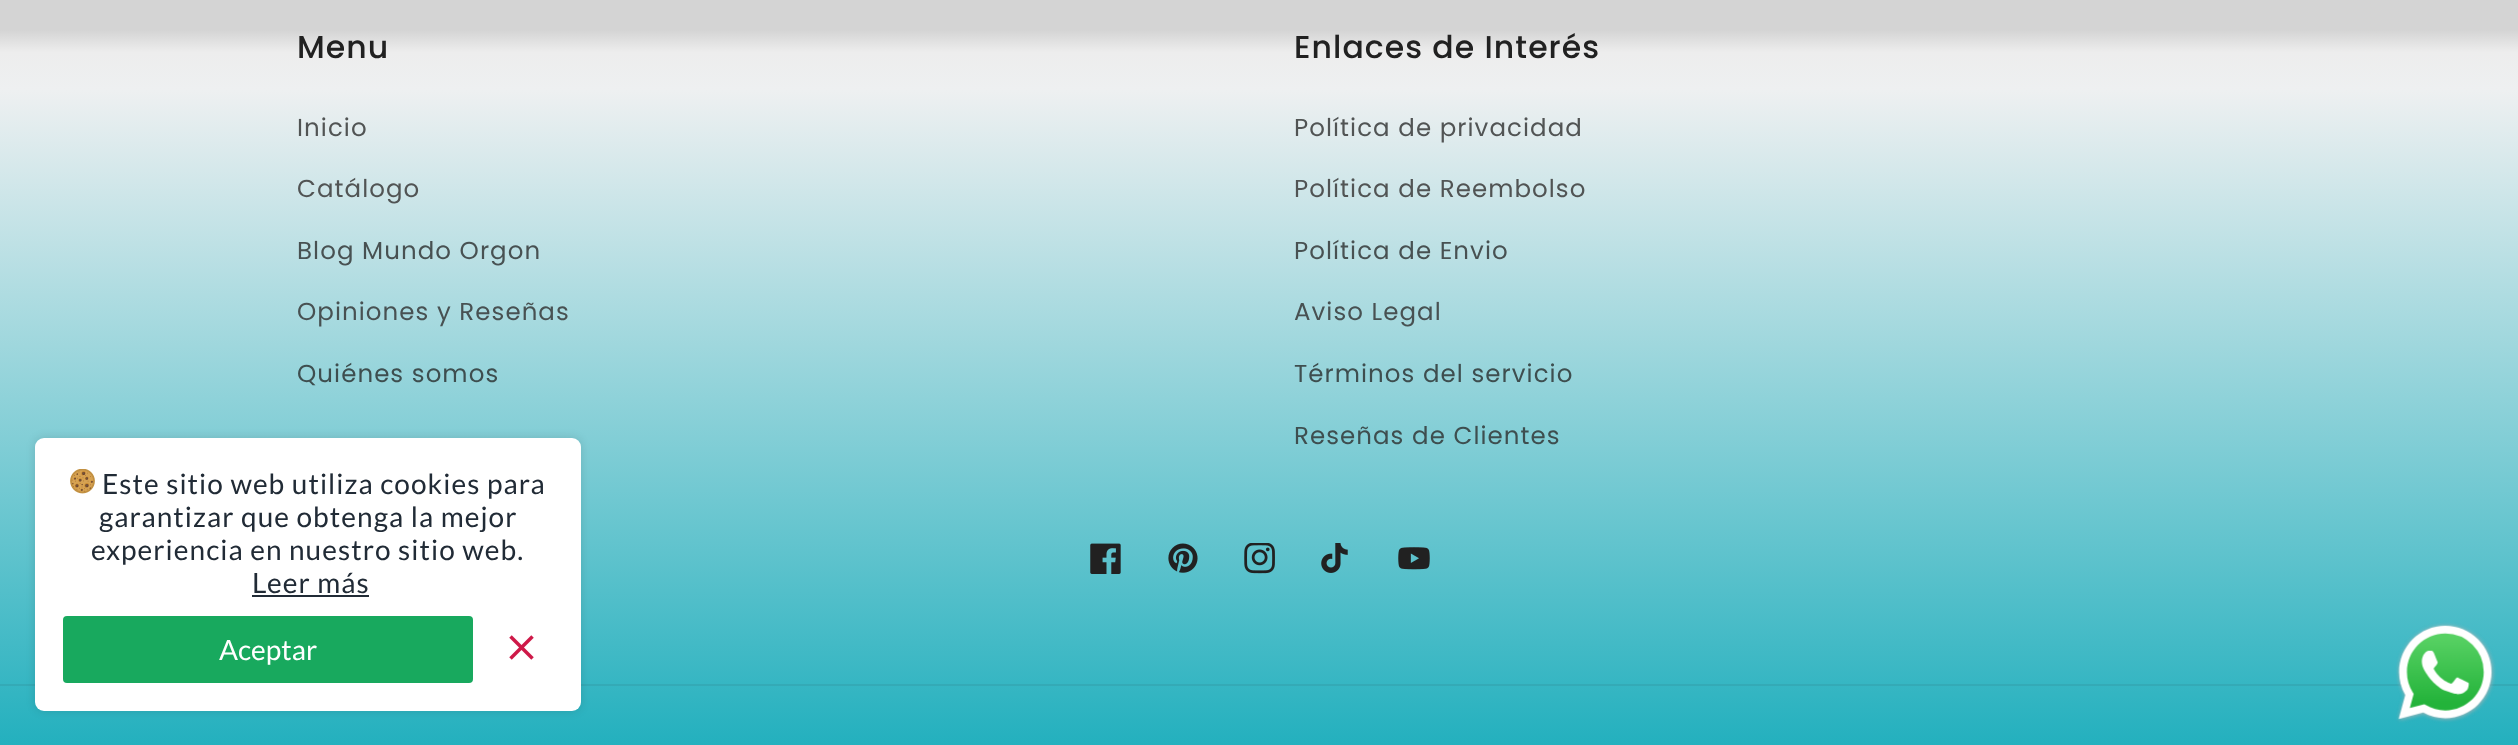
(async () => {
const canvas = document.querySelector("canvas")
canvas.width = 2518
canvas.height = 745
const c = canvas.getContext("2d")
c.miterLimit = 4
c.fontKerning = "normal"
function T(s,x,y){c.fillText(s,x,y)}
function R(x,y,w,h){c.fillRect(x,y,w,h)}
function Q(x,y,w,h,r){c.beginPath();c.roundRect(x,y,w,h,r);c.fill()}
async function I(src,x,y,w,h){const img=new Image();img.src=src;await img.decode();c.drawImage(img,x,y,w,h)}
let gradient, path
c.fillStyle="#fff"
R(0,0,2518,745)
gradient = c.createLinearGradient(1259,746,1259,0)
gradient.addColorStop(0,"#23b0be")
gradient.addColorStop(.88,"#eef0f1")
gradient.addColorStop(.93,"#ededed")
gradient.addColorStop(.96,"#d4d4d4")
c.fillStyle = gradient
R(0,0,2518,745)
c.letterSpacing="1.05px"
c.font="500 31.5px Poppins"
c.fillStyle="#212121"
T("Menu",297,58)
c.font="24.5px Poppins"
c.fillStyle="#515454"
T("Inicio",297,136)
T("Catálogo",297,197)
c.fillStyle="#485152"
T("Blog Mundo Orgon",297,259)
T("Opiniones y Reseñas",297,320)
c.fillStyle="#3e4e4f"
T("Quiénes somos",297,382)
c.font="500 31.5px Poppins"
c.fillStyle="#212121"
T("Enlaces de Interés",1294,58)
c.font="24.5px Poppins"
c.fillStyle="#515454"
T("Política de privacidad",1294,136)
T("Política de Reembolso",1294,197)
c.fillStyle="#485152"
T("Política de Envio",1294,259)
T("Aviso Legal",1294,320)
c.fillStyle="#3e4e4f"
T("Términos del servicio",1294,382)
T("Reseñas de Clientes",1294,444)
await I("1.png",1090,543,31,31)
await I("2.png",1168,543,30,30)
await I("3.png",1244,543,31,31)
await I("4.png",1321,543,27,30)
await I("5.png",1398,547,32,23)
c.fillStyle="#34aab6"
R(0,684,2518,2)
c.fillStyle="#fff"
Q(35,438,546,273,9)
c.save()
path = new Path2D("M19 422h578v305h-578zm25 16h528c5 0 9 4 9 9v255c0 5-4 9-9 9h-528c-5 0-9-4-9-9v-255c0-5 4-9 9-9z")
c.clip(path,"evenodd")
c.fillStyle="#0000001f"
c.filter="blur(5px)"
c.beginPath()
c.roundRect(35,438,546,273,9)
c.fill()
c.filter="none"
c.restore()
await I("6.png",70,469,25,25)
c.font="28px Lato"
c.fillStyle="#212b36"
T("Este sitio web utiliza cookies para",102,494)
T("garantizar que obtenga la mejor",99,527)
T("experiencia en nuestro sitio web.",91,560)
T("Leer más",252,593)
R(252,595,117,2)
c.fillStyle="#18a95e"
Q(63,616,410,67,4)
c.letterSpacing="0px"
c.fillStyle="#fff"
T("Aceptar",219,660)
await I("7.png",509,635,25,25)
await I("8.png",2396,622,100,101)
})()
